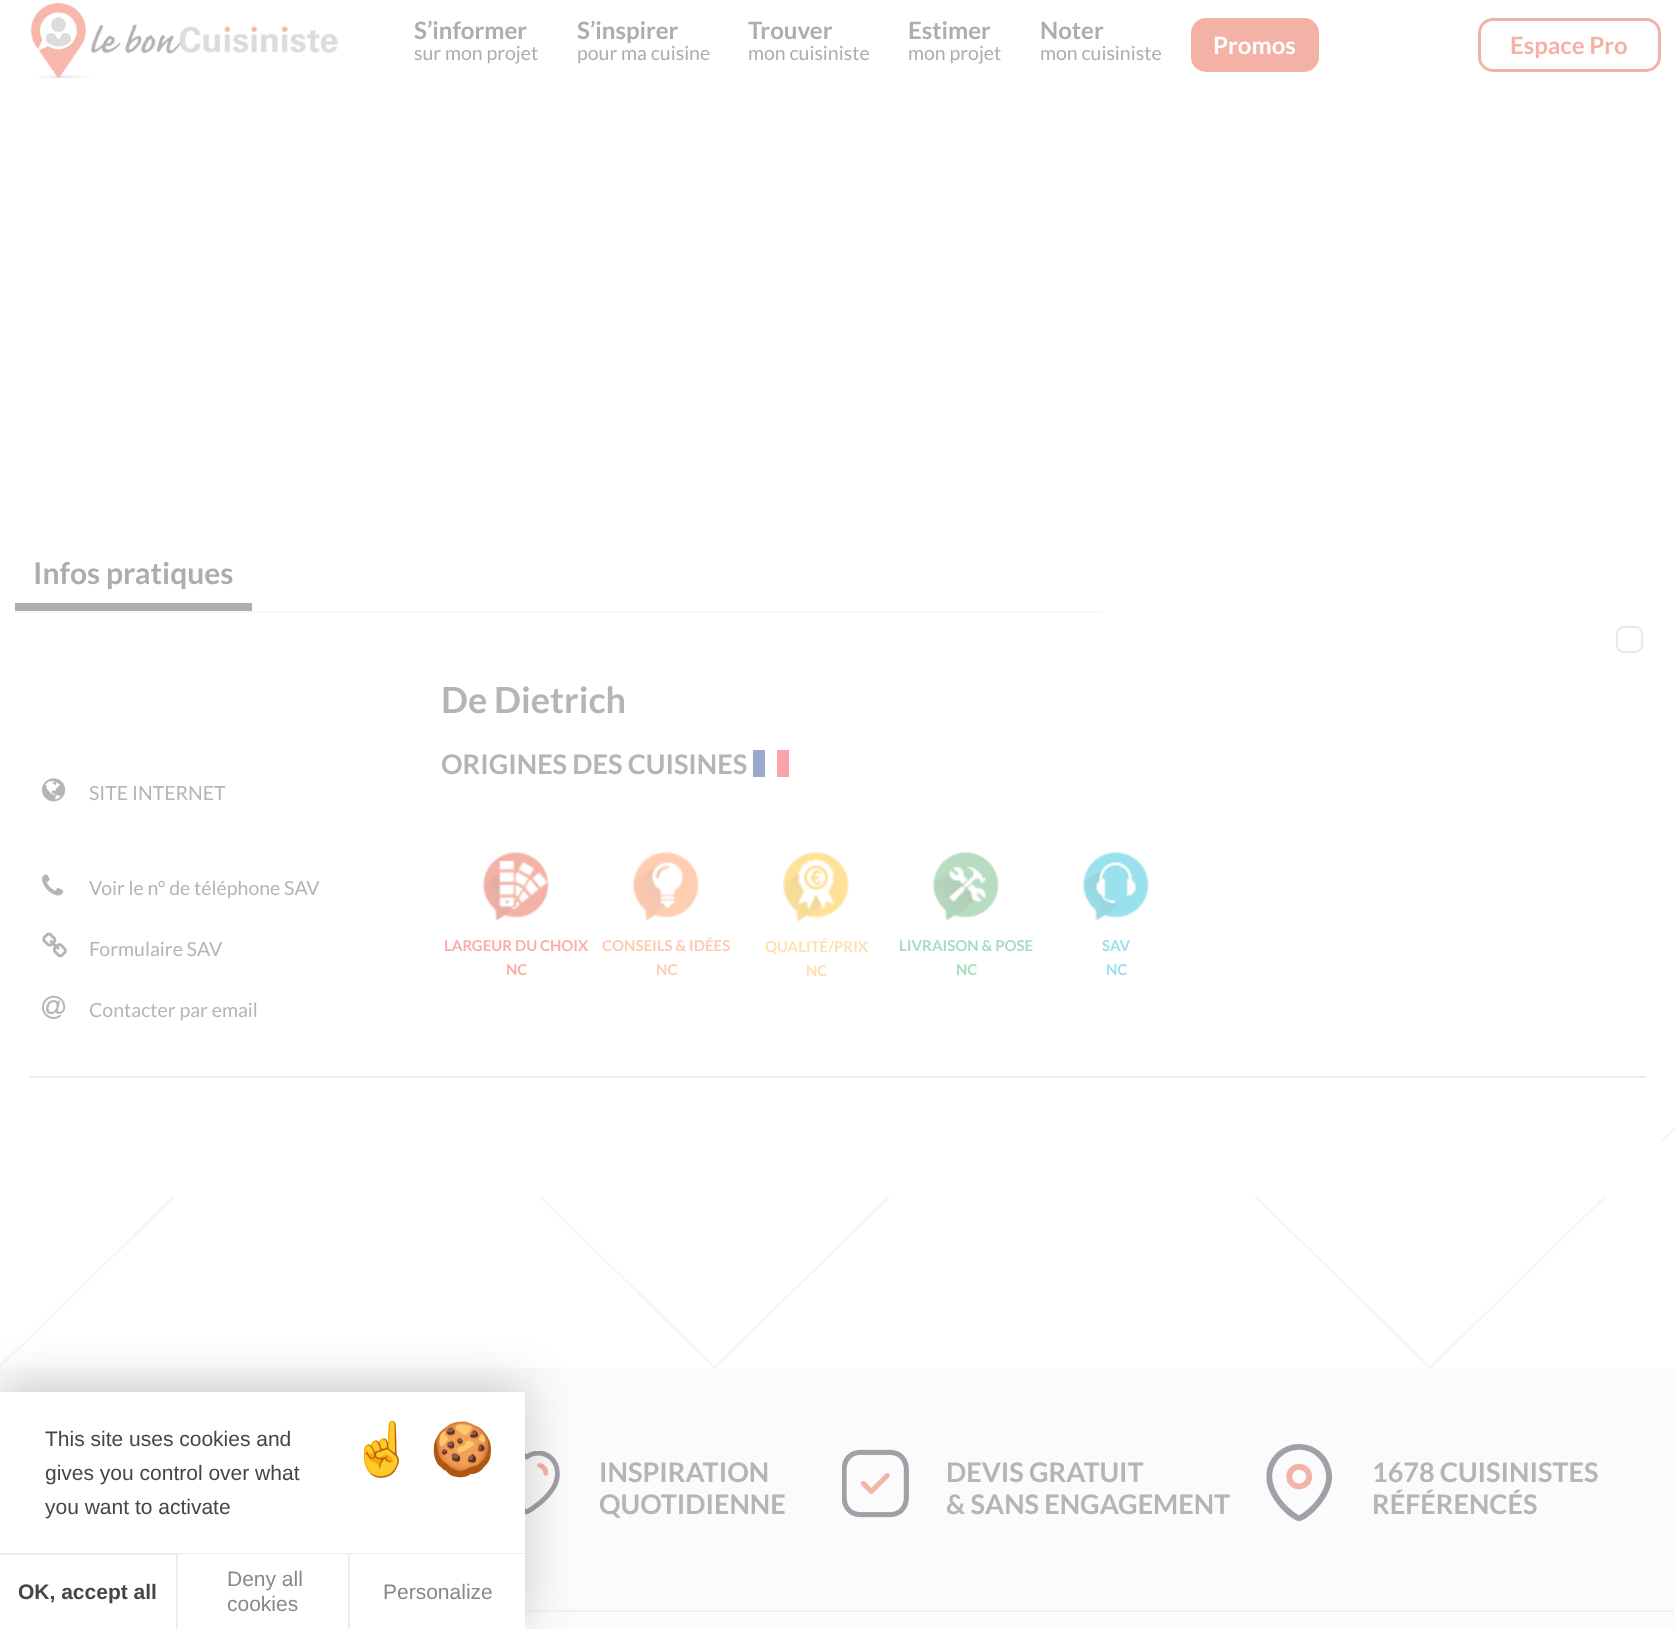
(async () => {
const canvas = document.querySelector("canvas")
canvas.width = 1675
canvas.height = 1629
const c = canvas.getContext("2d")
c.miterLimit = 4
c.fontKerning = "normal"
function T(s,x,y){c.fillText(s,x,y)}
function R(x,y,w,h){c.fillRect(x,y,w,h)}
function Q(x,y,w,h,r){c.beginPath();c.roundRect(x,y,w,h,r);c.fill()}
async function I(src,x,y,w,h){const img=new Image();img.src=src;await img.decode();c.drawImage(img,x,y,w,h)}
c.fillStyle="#fff"
R(0,0,1675,1629)
await I("1.png",30,3,308,75)
c.font="bold 24px Lato"
c.fillStyle="#adadad"
T("S’informer",414,39)
c.font="19.5px Lato"
T("sur mon projet",414,60)
c.font="bold 24px Lato"
T("S’inspirer",577,39)
c.font="19.5px Lato"
T("pour ma cuisine",577,60)
c.font="bold 24px Lato"
T("Trouver",748,39)
c.font="19.5px Lato"
T("mon cuisiniste",748,60)
c.font="bold 24px Lato"
T("Estimer",908,39)
c.font="19.5px Lato"
T("mon projet",908,60)
c.font="bold 24px Lato"
T("Noter",1040,39)
c.font="19.5px Lato"
T("mon cuisiniste",1040,60)
c.fillStyle="#f4b2a7"
Q(1191,18,128,54,15)
c.font="bold 24px Lato"
c.fillStyle="#fff"
T("Promos",1213,54)
c.beginPath()
c.roundRect(1479.5,19.5,180,51,13.5)
c.strokeStyle="#f4b2a7"
c.lineWidth=3
c.stroke()
c.fillStyle="#f4b2a7"
T("Espace Pro",1510,54)
c.fillStyle="#f9f9fb"
R(15,611,1088,2)
c.fillStyle="#adadad"
R(15,603,237,8)
c.font="bold 30px Lato"
T("Infos pratiques",33,584)
await I("11.png",0,1126,1675,242)
c.fillStyle="#fff"
R(172,1126,1489,71)
c.beginPath()
c.roundRect(1617,627,25,25,7)
c.strokeStyle="#e7e9ed"
c.lineWidth=2
c.stroke()
await I("2.png",42,778,24,24)
c.font="19.5px Lato"
c.fillStyle="#b5b5b5"
T("SITE INTERNET",89,800)
await I("3.png",42,874,22,22)
T("Voir le n° de téléphone SAV",89,895)
await I("4.png",42,932,25,26)
T("Formulaire SAV",89,956)
await I("5.png",42,995,24,24)
T("Contacter par email",89,1017)
c.font="bold 36px Lato"
T("De Dietrich",441,713)
c.font="bold 27px Lato"
T("ORIGINES DES CUISINES",441,774)
c.fillStyle="#99a8cc"
R(753,750,12,27)
c.fillStyle="#faa3ac"
R(777,750,12,27)
await I("6.png",483,852,66,69)
c.font="bold 15px Lato"
c.fillStyle="#fbaea9"
T("LARGEUR DU CHOIX",444,951)
T("NC",506,975)
await I("7.png",633,852,66,69)
c.fillStyle="#ffcab3"
T("CONSEILS & IDÉES",602,951)
T("NC",656,975)
await I("8.png",783,852,66,70)
c.fillStyle="#ffe0b1"
T("QUALITÉ/PRIX",765,952)
T("NC",806,976)
await I("9.png",933,852,66,69)
c.fillStyle="#a7dcc1"
T("LIVRAISON & POSE",899,951)
T("NC",956,975)
await I("10.png",1083,852,66,69)
c.fillStyle="#99e1eb"
T("SAV",1102,951)
T("NC",1106,975)
c.fillStyle="#ececec"
R(30,1076,1616,2)
c.fillStyle="#fbfbfb"
R(0,1368,1675,242)
await I("12.png",525,1451,35,64)
c.font="bold 27px Lato"
c.fillStyle="#b5b5b5"
T("INSPIRATION",599,1482)
T("QUOTIDIENNE",599,1514)
await I("13.png",842,1449,67,69)
T("DEVIS GRATUIT",946,1482)
c.save()
c.beginPath()
c.rect(932,1457,298,64)
c.clip()
T("& SANS ENGAGEMENT",946,1514)
c.restore()
await I("14.png",1266,1444,66,78)
T("1678 CUISINISTES",1372,1482)
T("RÉFÉRENCÉS",1372,1514)
c.fillStyle="#fbfbfb"
R(525,1612,1150,17)
c.fillStyle="#f1f1f1"
R(525,1610,1150,2)
c.fillStyle="#00000033"
c.filter="blur(24px)"
c.beginPath()
c.rect(0,1385,525,237)
c.fill()
c.filter="none"
c.fillStyle="#fff"
R(0,1392,525,237)
c.font="21px Liberation Sans"
c.fillStyle="#454545"
T("This site uses cookies and",45,1446)
T("gives you control over what",45,1480)
T("you want to activate",45,1514)
c.font="52px Noto Color Emoji"
T("☝",350,1467)
T("🍪",430,1467)
c.fillStyle="#eee"
R(0,1553,525,2)
c.font="bold 21px Liberation Sans"
c.fillStyle="#454545"
T("OK, accept all",18,1599)
c.fillStyle="#fff"
R(178,1554,170,1)
c.fillStyle="#eee"
R(348,1554,2,75)
R(176,1554,2,75)
c.font="21px Liberation Sans"
c.fillStyle="#888"
T("Deny all",227,1586)
T("cookies",227,1611)
c.strokeStyle="#fff"
c.strokeRect(351,1555,173,73)
T("Personalize",383,1599)
})()
